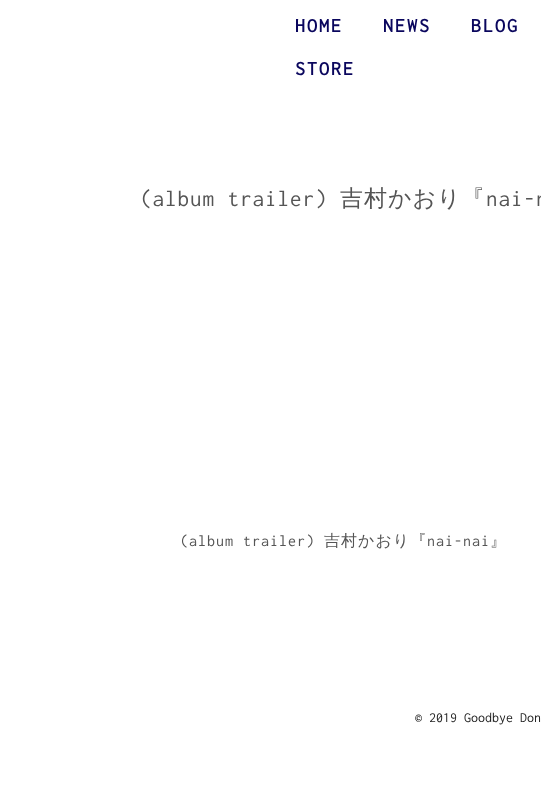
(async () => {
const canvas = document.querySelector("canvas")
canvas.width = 541
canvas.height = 807
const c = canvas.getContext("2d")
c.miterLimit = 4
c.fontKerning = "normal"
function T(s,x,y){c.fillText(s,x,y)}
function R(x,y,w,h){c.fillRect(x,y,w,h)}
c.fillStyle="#fff"
R(0,0,541,807)
c.letterSpacing="2px"
c.font="bold 20px Inconsolata"
c.fillStyle="#0a065d"
T("HOME",295,32)
T("NEWS",383,32)
T("BLOG",471,32)
T("STORE",295,75)
c.letterSpacing="1px"
c.font="23px Inconsolata"
c.fillStyle="#555"
T("(album trailer)",140,206)
c.font="500 23px WenQuanYi Zen Hei"
T("吉村かおり『",340,206)
c.font="23px Inconsolata"
T("nai-n",486,206)
c.font="16px Inconsolata"
T("(album trailer)",180,546)
c.font="500 16px WenQuanYi Zen Hei"
T("吉村かおり『",324,546)
c.font="16px Inconsolata"
T("nai-nai",427,546)
c.font="500 16px WenQuanYi Zen Hei"
T("』",490,546)
c.letterSpacing="0px"
c.font="14px Inconsolata"
c.fillStyle="#222"
T("© 2019 Goodbye Don",415,722)
})()
